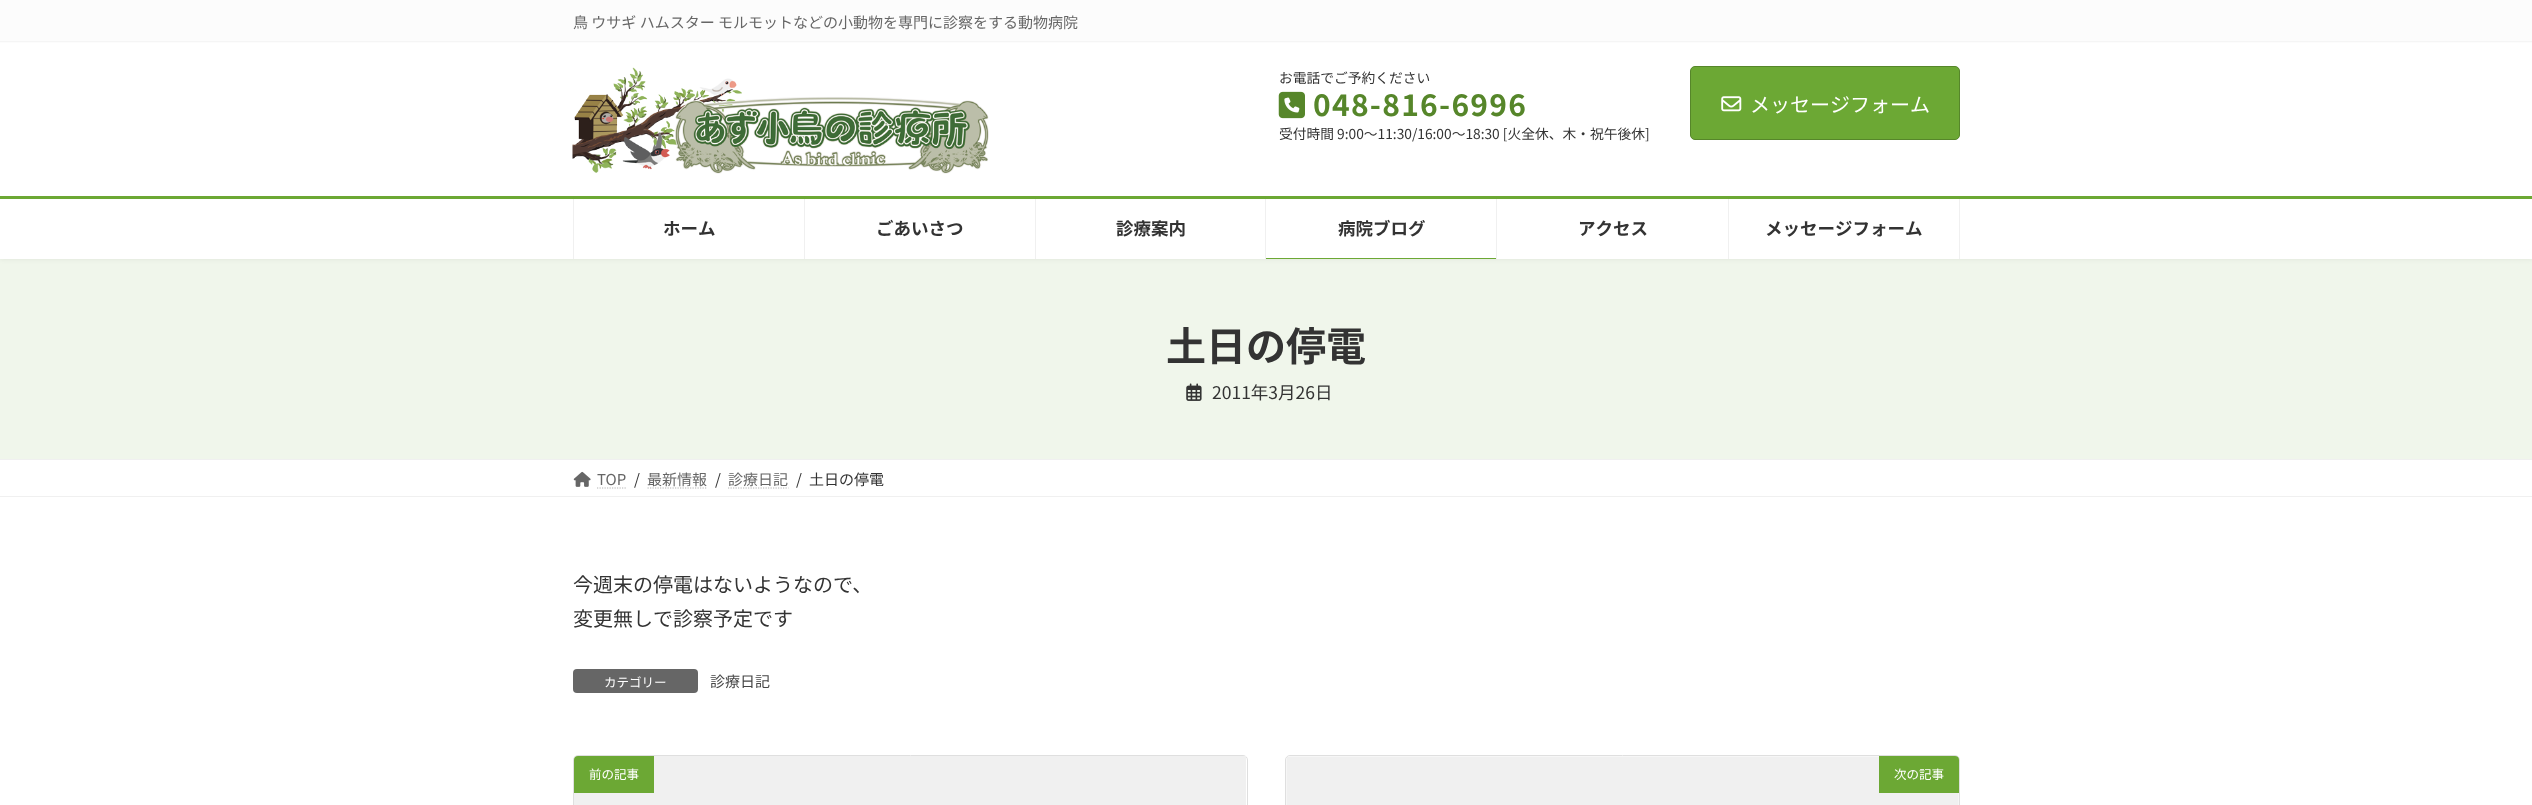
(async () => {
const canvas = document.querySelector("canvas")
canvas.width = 2532
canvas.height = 805
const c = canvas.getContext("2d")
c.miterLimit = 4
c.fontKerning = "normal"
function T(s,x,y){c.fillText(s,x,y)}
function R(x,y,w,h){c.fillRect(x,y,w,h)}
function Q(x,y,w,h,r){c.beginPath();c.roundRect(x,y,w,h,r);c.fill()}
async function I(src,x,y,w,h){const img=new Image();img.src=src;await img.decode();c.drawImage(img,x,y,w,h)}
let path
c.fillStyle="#fff"
R(0,0,2532,805)
c.fillStyle="#f0f6eb"
R(0,259,2532,200)
c.fillStyle="#0000000d"
c.filter="blur(2px)"
c.beginPath()
c.rect(0,-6,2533,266)
c.fill()
c.filter="none"
c.fillStyle="#fff"
R(0,43,2532,216)
c.fillStyle="#fcfcfc"
R(0,0,2532,43)
c.fillStyle="#f5f5f5"
R(0,41,2532,1)
c.font="15px Noto Sans JP"
c.fillStyle="#666"
T("鳥 ウサギ ハムスター モルモットなどの小動物を専門に診察をする動物病院",573,28)
await I("1.png",572,67,417,107)
c.font="13.75px Noto Sans JP"
c.fillStyle="#333"
T("お電話でご予約ください",1279,83)
await I("2.png",1278,91,27,28)
c.letterSpacing="1.25px"
c.font="bold 30px Noto Sans JP"
c.fillStyle="#56862a"
T("048-816-6996",1313,116)
c.letterSpacing="0px"
c.font="13.75px Noto Sans JP"
c.fillStyle="#333"
T("受付時間 9:00～11:30/16:00～18:30 [火全休、木・祝午後休]",1279,139)
c.fillStyle="#6ca834"
c.beginPath()
c.roundRect(1690.5,66.5,269,73,4.5)
c.fill()
c.strokeStyle="#56862a"
c.stroke()
await I("3.png",1721,96,21,16)
c.font="20px Noto Sans JP"
c.fillStyle="#fff"
T("メッセージフォーム",1750,112)
c.fillStyle="#6ca834"
R(0,196,2532,3)
c.fillStyle="#f0f0f0"
R(804,199,1,60)
R(573,199,1,60)
c.font="bold 17.5px Noto Sans JP"
c.fillStyle="#333"
T("ホーム",663,235)
c.fillStyle="#f0f0f0"
R(1035,199,1,60)
c.fillStyle="#333"
T("ごあいさつ",876,235)
c.fillStyle="#f0f0f0"
R(1265,199,1,60)
c.fillStyle="#333"
T("診療案内",1116,235)
c.fillStyle="#f0f0f0"
R(1496,199,1,60)
c.fillStyle="#333"
T("病院ブログ",1338,235)
c.fillStyle="#6ca834"
R(1266,258,230,1)
c.fillStyle="#f0f0f0"
R(1728,199,1,60)
c.fillStyle="#333"
T("アクセス",1578,235)
c.fillStyle="#f0f0f0"
R(1959,199,1,60)
c.fillStyle="#333"
T("メッセージフォーム",1765,235)
c.font="bold 40px Noto Sans JP"
T("土日の停電",1166,361)
await I("4.png",1186,383,16,18)
c.font="17.5px Noto Sans JP"
T("2011年3月26日",1212,399)
c.fillStyle="#f0f0f0"
R(0,459,2532,1)
R(0,496,2532,1)
await I("5.png",573,471,18,16)
c.font="15px Noto Sans JP"
c.fillStyle="#666"
T("TOP",597,485)
path = new Path2D("M597 488h29.5")
c.strokeStyle="#b3b3b3"
c.lineWidth=1.2
c.setLineDash([1.25,1.25])
c.stroke(path)
c.fillStyle="#333"
T("/",634,485)
c.fillStyle="#666"
T("最新情報",647,485)
path = new Path2D("M647.5 488h60")
c.stroke(path)
c.fillStyle="#333"
T("/",715,485)
c.fillStyle="#666"
T("診療日記",728,485)
path = new Path2D("M728 488h60.5")
c.stroke(path)
c.fillStyle="#333"
T("/",796,485)
T("土日の停電",809,485)
c.font="20px Noto Sans JP"
T("今週末の停電はないようなので、",573,592)
T("変更無しで診察予定です",573,626)
c.fillStyle="#666"
Q(573,669,125,24,4)
c.font="12.5px Noto Sans JP"
c.fillStyle="#fff"
T("カテゴリー",604,687)
c.font="15px Noto Sans JP"
c.fillStyle="#464646"
T("診療日記",710,687)
c.beginPath()
c.roundRect(573.5,755.5,674,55,4.5)
c.strokeStyle="#dfdfdf"
c.lineWidth=1
c.setLineDash([])
c.stroke()
c.fillStyle="#f0f0f0"
R(574,756,672,49)
c.fillStyle="#6ca834"
c.beginPath()
c.roundRect(574,756,80,37,[4,0,0,0])
c.fill()
c.font="12.5px Noto Sans JP"
c.fillStyle="#fff"
T("前の記事",589,779)
c.beginPath()
c.roundRect(1285.5,755.5,674,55,4.5)
c.stroke()
await I("6.png",1286,756,673,49)
c.fillStyle="#6ca834"
c.beginPath()
c.roundRect(1879,756,80,37,[0,4,0,0])
c.fill()
c.fillStyle="#fff"
T("次の記事",1894,779)
})()
